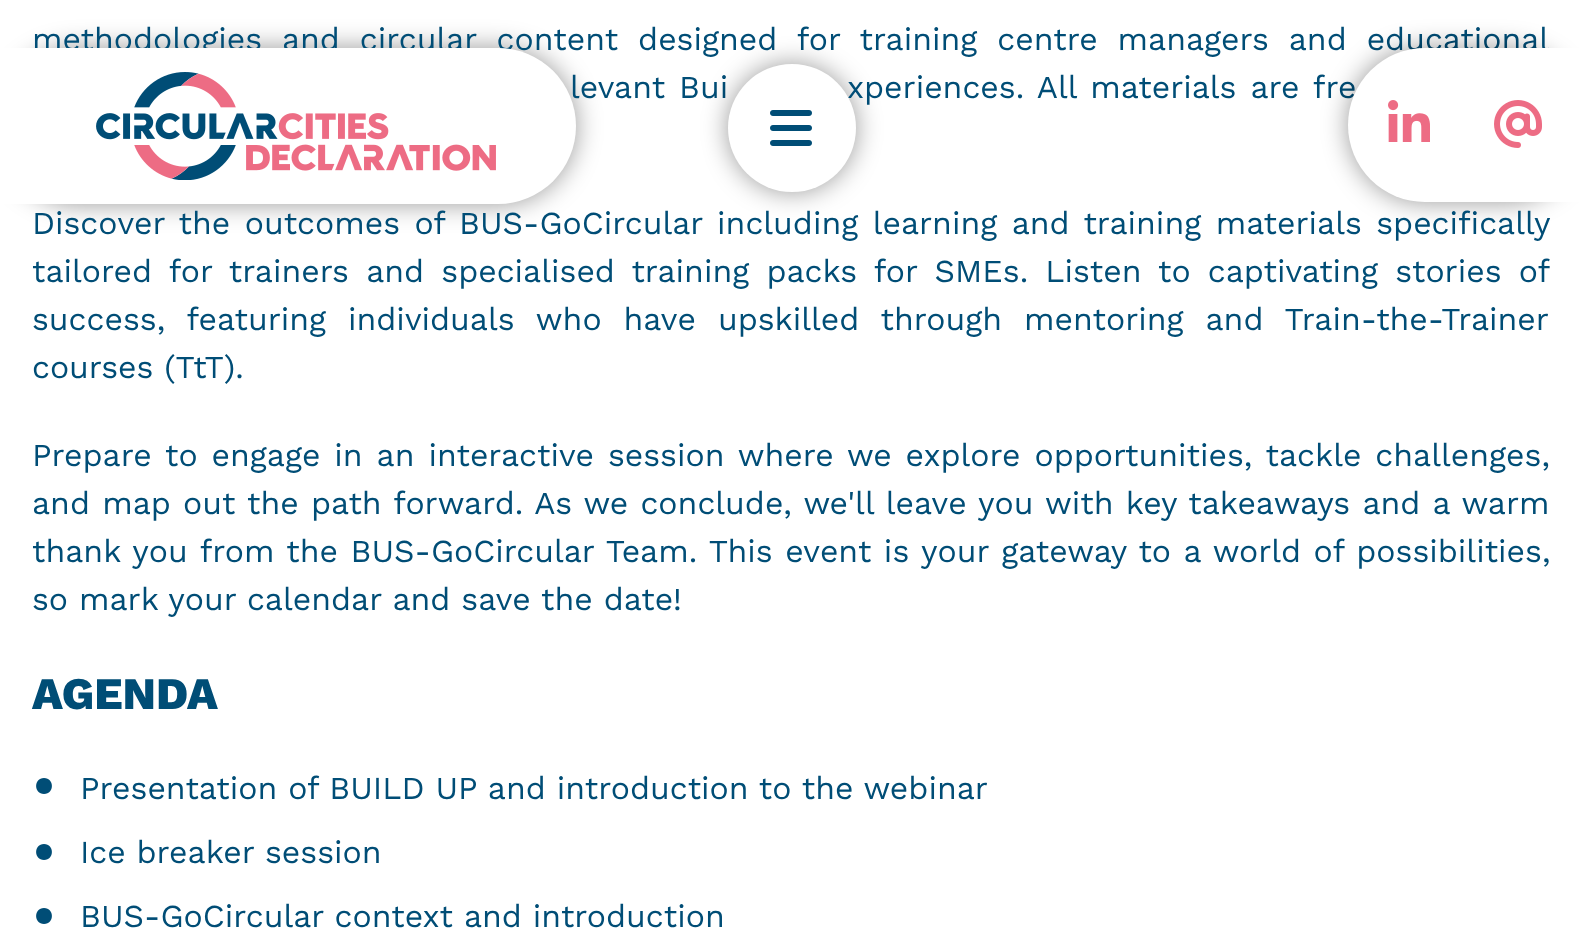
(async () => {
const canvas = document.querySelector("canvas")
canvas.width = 1582
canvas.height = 936
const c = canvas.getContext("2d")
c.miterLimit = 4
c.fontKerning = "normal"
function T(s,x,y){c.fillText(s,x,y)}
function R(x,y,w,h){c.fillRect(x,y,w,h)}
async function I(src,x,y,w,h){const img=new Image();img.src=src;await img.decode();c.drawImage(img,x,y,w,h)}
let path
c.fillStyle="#fff"
R(0,0,1582,936)
c.fillStyle="#00000066"
c.filter="blur(13px)"
c.beginPath()
c.roundRect(0,48,576,156,78)
c.fill()
c.filter="none"
c.wordSpacing="9px"
c.font="32px Work Sans"
c.fillStyle="#004d76"
T("methodologies and circular content designed for training centre managers and educational",32,50)
c.wordSpacing="3px"
T("levant Bui",570,98)
c.fillStyle="#fff"
c.beginPath()
c.roundRect(0,48,576,156,[0,78,78,0])
c.fill()
await I("1.png",96,72,400,108)
c.fillStyle="#00000066"
c.filter="blur(13px)"
c.beginPath()
c.roundRect(728,64,128,128,64)
c.fill()
c.filter="none"
c.fillStyle="#004d76"
T("xperiences. All materials are fre",847,98)
c.fillStyle="#fff"
c.beginPath()
c.arc(792,128,64,0,7)
c.fill()
await I("2.png",770,110,42,36)
c.fillStyle="#00000066"
c.filter="blur(13px)"
c.beginPath()
c.roundRect(1348,48,234,154,77)
c.fill()
c.filter="none"
c.fillStyle="#fff"
c.beginPath()
c.roundRect(1348,48,234,154,[77,0,0,77])
c.fill()
await I("3.png",1388,100,42,42)
await I("4.png",1494,100,48,48)
c.wordSpacing="3.5px"
c.fillStyle="#004d76"
T("Discover the outcomes of BUS-GoCircular including learning and training materials specifically",32,234)
c.wordSpacing="6.25px"
T("tailored for trainers and specialised training packs for SMEs. Listen to captivating stories of",32,282)
c.wordSpacing="11px"
T("success, featuring individuals who have upskilled through mentoring and Train-the-Trainer",32,330)
c.wordSpacing="0px"
T("courses (TtT).",32,378)
c.wordSpacing="3px"
T("Prepare to engage in an interactive session where we explore opportunities, tackle challenges,",32,466)
c.wordSpacing="1.3px"
T("and map out the path forward. As we conclude, we'll leave you with key takeaways and a warm",32,514)
c.wordSpacing="1.6px"
T("thank you from the BUS-GoCircular Team. This event is your gateway to a world of possibilities,",32,562)
c.wordSpacing="0px"
T("so mark your calendar and save the date!",32,610)
c.font="800 45px Work Sans"
T("AGENDA",32,709)
path = new Path2D("M44 794c10.5 0 10.5-16 0-16c-10.5 0-10.5 16 0 16z")
c.fill(path)
c.font="32px Work Sans"
T("Presentation of BUILD UP and introduction to the webinar",80,799)
path = new Path2D("M44 860c10.5 0 10.5-16 0-16c-10.5 0-10.5 16 0 16z")
c.fill(path)
T("Ice breaker session",80,863)
path = new Path2D("M44 924c10.5 0 10.5-16 0-16c-10.5 0-10.5 16 0 16z")
c.fill(path)
T("BUS-GoCircular context and introduction",80,927)
})()
